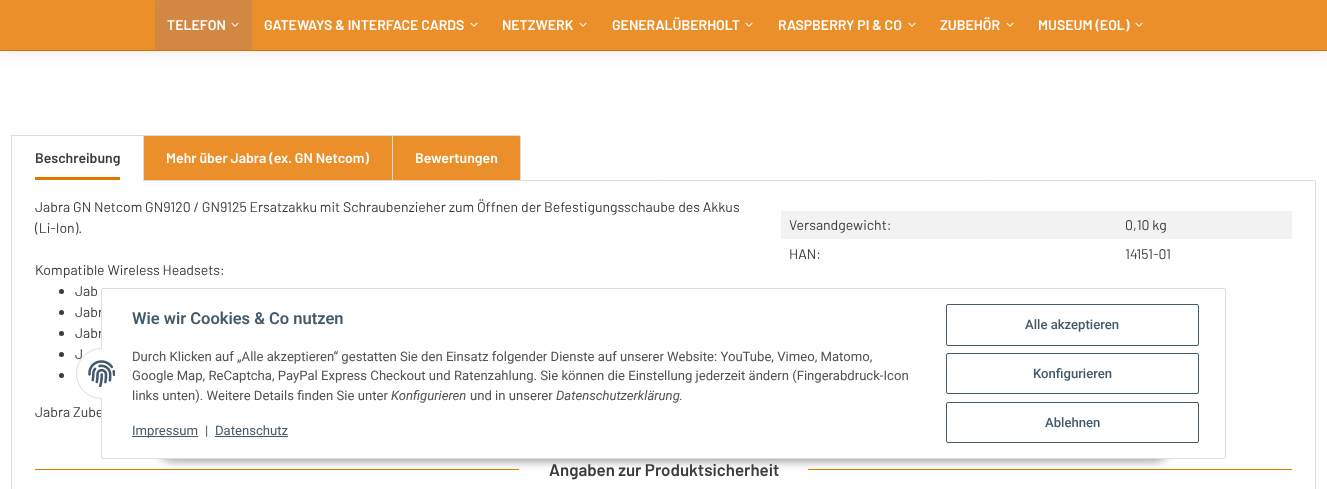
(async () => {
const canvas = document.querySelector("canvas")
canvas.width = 1327
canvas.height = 489
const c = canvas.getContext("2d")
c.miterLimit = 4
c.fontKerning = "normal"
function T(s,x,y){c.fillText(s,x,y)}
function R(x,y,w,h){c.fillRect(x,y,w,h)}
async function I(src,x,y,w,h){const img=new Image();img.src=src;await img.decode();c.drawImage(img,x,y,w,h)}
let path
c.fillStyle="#fff"
R(0,0,1327,489)
c.fillStyle="#3b3c3b14"
c.filter="blur(7.5px)"
c.beginPath()
c.rect(-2,0,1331,55)
c.fill()
c.filter="none"
c.fillStyle="#d97100"
R(0,50,1327,1)
c.fillStyle="#eb8f2b"
R(0,0,1327,50)
c.fillStyle="#d28743"
c.beginPath()
c.roundRect(155,0,97,50,[2,0,0,0])
c.fill()
c.font="600 14.05px Barlow"
c.fillStyle="#fff"
T("TELEFON",167,30)
await I("1.png",231,22,8,5)
T("GATEWAYS & INTERFACE CARDS",264,30)
await I("2.png",470,22,8,5)
T("NETZWERK",502,30)
await I("2.png",579,22,8,5)
T("GENERALÜBERHOLT",612,30)
await I("2.png",745,22,8,5)
T("RASPBERRY PI & CO",778,30)
await I("2.png",908,22,8,5)
T("ZUBEHÖR",940,30)
await I("2.png",1006,22,8,5)
T("MUSEUM (EOL)",1038,30)
await I("2.png",1135,22,8,5)
c.fillStyle="#ddd"
R(11,135,133,1)
path = new Path2D("M11.5 180.5h1302.5c1 0 1.5 .5 1.5 1.5v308c0 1-.5 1.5-1.5 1.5h-1301c-1 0-1.5-.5-1.5-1.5z")
c.strokeStyle="#ddd"
c.stroke(path)
c.fillStyle="#fff"
R(11,180,133,1)
c.fillStyle="#ddd"
R(11,135,1,46)
c.fillStyle="#3b3c3b"
T("Beschreibung",35,163)
c.fillStyle="#e37600"
R(35,177,85,3)
c.fillStyle="#eb8f2b"
c.beginPath()
c.rect(143.5,135.5,249,45)
c.fill()
c.stroke()
c.fillStyle="#fff"
T("Mehr über Jabra (ex. GN Netcom)",166,163)
c.fillStyle="#eb8f2b"
c.beginPath()
c.roundRect(392.5,135.5,128,45,[0,1.5,0,0])
c.fill()
c.stroke()
c.fillStyle="#fff"
T("Bewertungen",415,163)
c.font="14.05px Barlow"
c.fillStyle="#3b3c3b"
T("Jabra GN Netcom GN9120 / GN9125 Ersatzakku mit Schraubenzieher zum Öffnen der Befestigungsschaube des Akkus",35,212)
T("(Li-Ion).",35,233)
T("Kompatible Wireless Headsets:",35,275)
c.beginPath()
c.arc(61.5,291.5,2.5,0,7)
c.fill()
T("Jab",75,296)
c.beginPath()
c.arc(61.5,312.5,2.5,0,7)
c.fill()
T("Jabr",75,317)
c.beginPath()
c.arc(61.5,333.5,2.5,0,7)
c.fill()
T("Jabr",75,338)
c.beginPath()
c.arc(61.5,354.5,2.5,0,7)
c.fill()
T("J",75,359)
c.beginPath()
c.arc(61.5,375.5,2.5,0,7)
c.fill()
T("Jabra Zube",35,417)
c.fillStyle="#f2f2f2"
R(781,211,511,28)
c.fillStyle="#3b3c3b"
T("Versandgewicht:",789,230)
T("0,10 kg",1125,230)
T("HAN:",789,259)
T("14151-01",1125,259)
c.fillStyle="#e37600"
R(35,469,484,1)
c.font="600 16.9px Barlow"
c.fillStyle="#3b3c3b"
T("Angaben zur Produktsicherheit",549,476)
c.fillStyle="#e37600"
R(808,469,484,1)
c.fillStyle="#3b3c3b73"
c.filter="blur(4.5px)"
c.beginPath()
c.roundRect(158,432,1011,30,15)
c.fill()
c.filter="none"
c.fillStyle="#fff"
c.beginPath()
c.roundRect(101.5,288.5,1124,170,1.5)
c.fill()
c.stroke()
c.beginPath()
c.roundRect(76.5,348.5,51,50,25)
c.fill()
c.stroke()
R(102,348,26,51)
await I("3.png",88,360,27,27)
c.font="600 16.5px Roboto"
c.fillStyle="#435a6b"
T("Wie wir Cookies & Co nutzen",132,324)
c.font="13.12px Roboto"
c.fillStyle="#525252"
T("Durch Klicken auf „Alle akzeptieren“ gestatten Sie den Einsatz folgender Dienste auf unserer Website: YouTube, Vimeo, Matomo,",132,361)
T("Google Map, ReCaptcha, PayPal Express Checkout und Ratenzahlung. Sie können die Einstellung jederzeit ändern (Fingerabdruck-Icon",132,380)
T("links unten). Weitere Details finden Sie unter",132,400)
c.font="italic 13.12px Roboto"
T("Konfigurieren",391,400)
c.font="13.12px Roboto"
T("und in unserer",470,400)
c.font="italic 13.12px Roboto"
T("Datenschutzerklärung",556,400)
c.font="13.12px Roboto"
T(".",679,400)
c.fillStyle="#435a6b"
R(132,436,66,1)
T("Impressum",132,435)
c.fillStyle="#525252"
T("|",205,435)
c.fillStyle="#435a6b"
T("Datenschutz",215,435)
R(215,436,73,1)
c.beginPath()
c.roundRect(946.5,304.5,252,41,1.5)
c.strokeStyle="#435a6b"
c.stroke()
c.font="500 13.12px Roboto"
T("Alle akzeptieren",1025,329)
c.beginPath()
c.roundRect(946.5,353.5,252,40,1.5)
c.stroke()
T("Konfigurieren",1033,378)
c.beginPath()
c.roundRect(946.5,402.5,252,40,1.5)
c.stroke()
T("Ablehnen",1045,427)
})()
